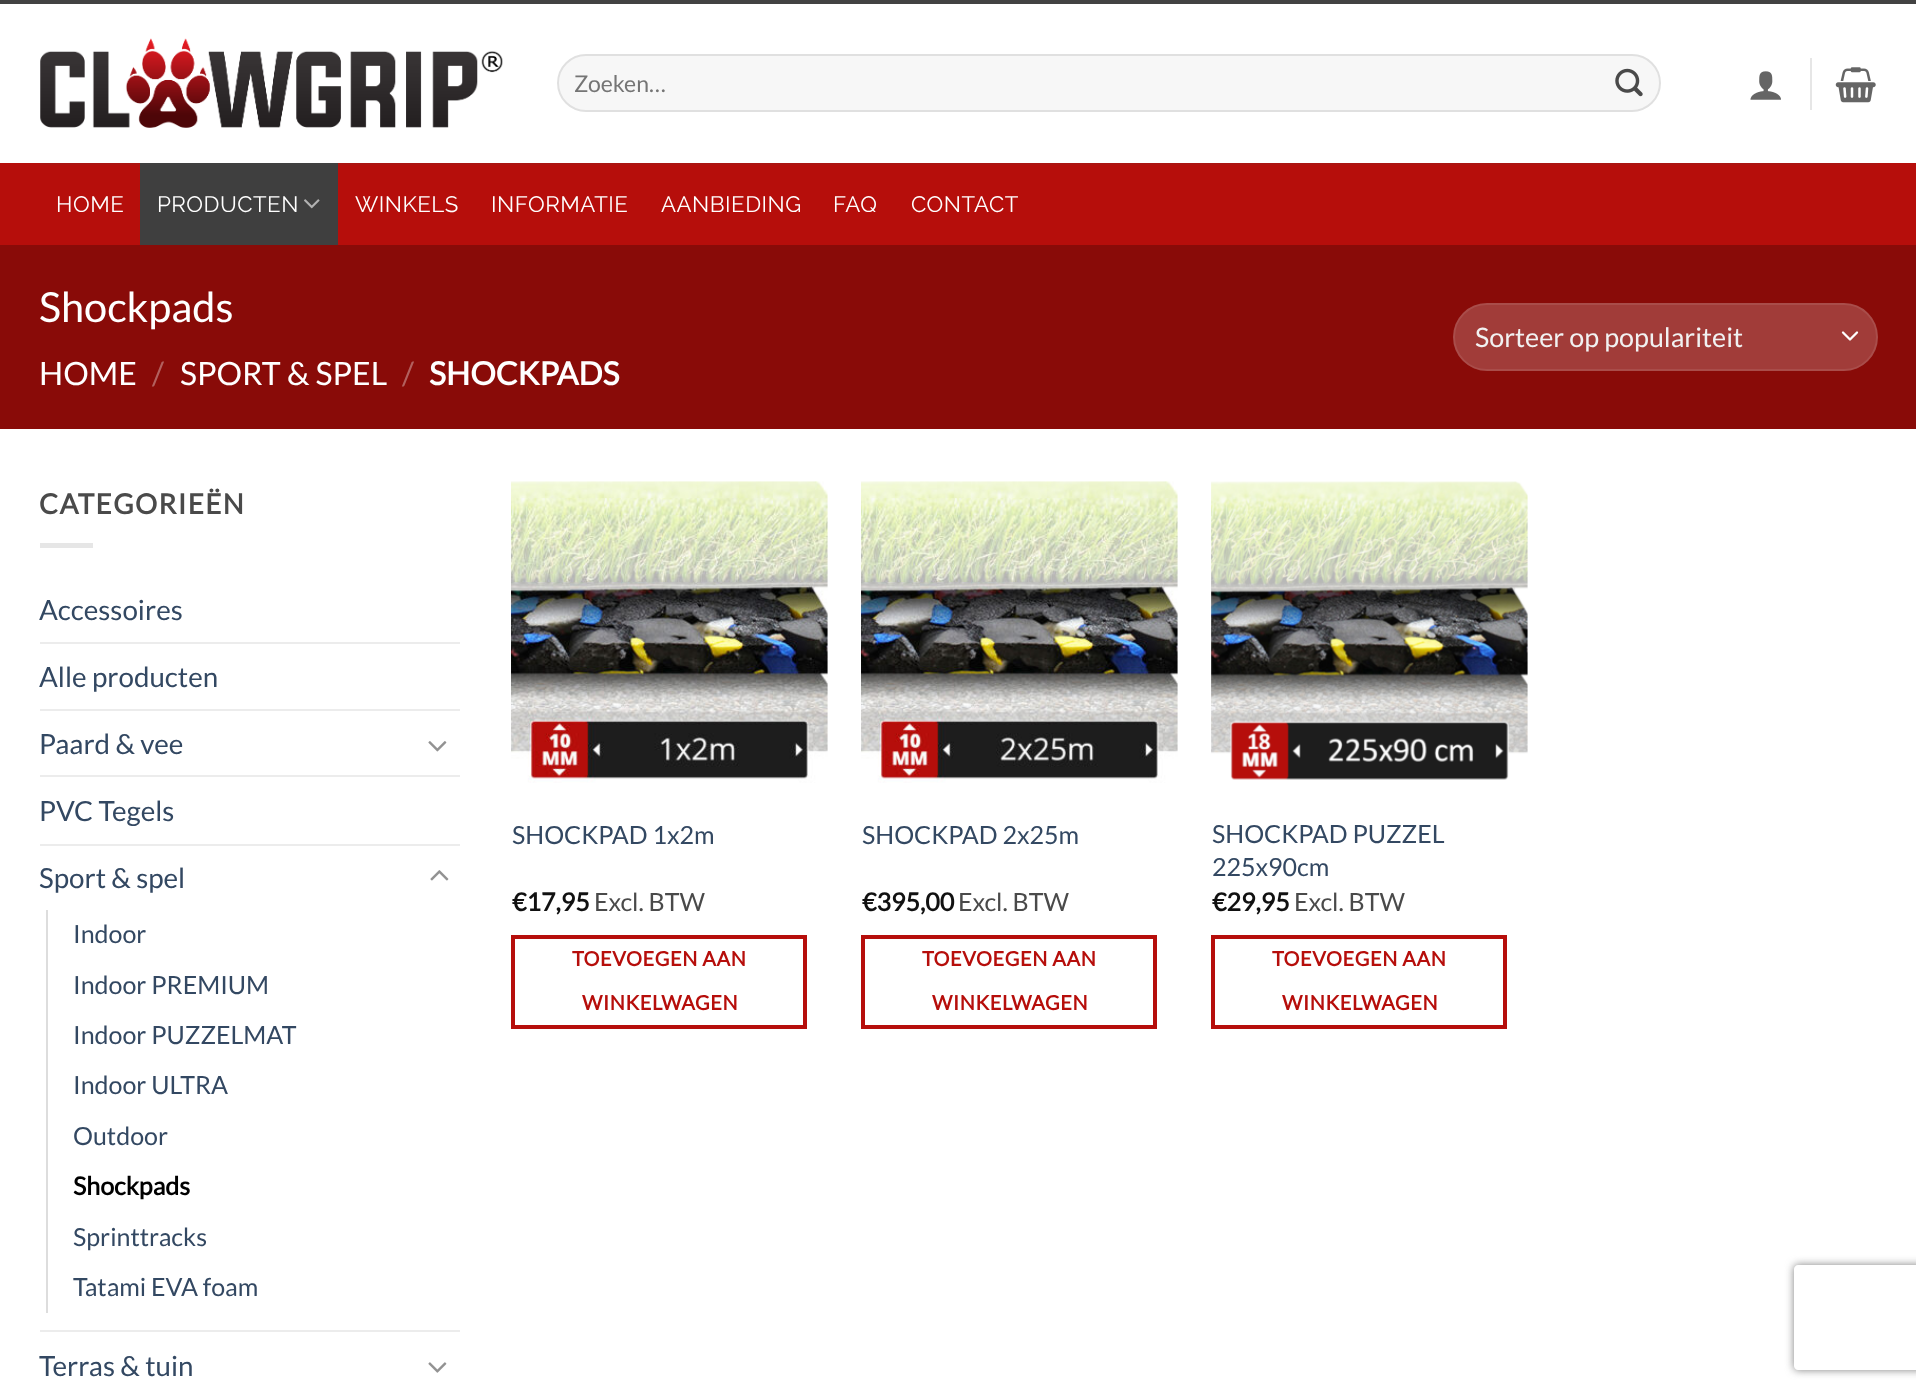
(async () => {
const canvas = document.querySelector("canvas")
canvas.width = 1916
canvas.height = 1394
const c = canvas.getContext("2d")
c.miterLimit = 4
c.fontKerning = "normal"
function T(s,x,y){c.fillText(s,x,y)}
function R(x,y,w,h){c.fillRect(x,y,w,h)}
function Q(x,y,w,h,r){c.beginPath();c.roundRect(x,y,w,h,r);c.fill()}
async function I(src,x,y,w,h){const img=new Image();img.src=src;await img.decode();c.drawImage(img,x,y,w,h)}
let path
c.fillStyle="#fff"
R(0,0,1916,1394)
c.fillStyle="#424242"
R(0,0,1916,4)
await I("1.png",40,38,463,90)
c.fillStyle="#f7f7f7"
Q(557,54,1104,58,29)
c.beginPath()
c.roundRect(558,55,1102,56,28)
c.strokeStyle="#00000017"
c.lineWidth=2
c.stroke()
c.font="23px Lato"
c.fillStyle="#757575"
T("Zoeken…",574,92)
await I("2.png",1615,68,28,29)
await I("3.png",1750,71,31,29)
c.fillStyle="#e6e6e6"
R(1810,58,2,52)
await I("4.png",1835,67,41,36)
c.fillStyle="#b60e0b"
R(0,163,1916,82)
c.fillStyle="#ab1411"
R(40,163,1838,2)
c.letterSpacing="0.5px"
c.font="100 22.25px Raleway"
c.fillStyle="#fff"
T("HOME",56,212)
c.fillStyle="#3f3f3f"
R(140,165,198,80)
c.fillStyle="#404040"
R(140,163,198,2)
c.fillStyle="#fff"
T("PRODUCTEN",157,212)
await I("5.png",304,199,16,10)
T("WINKELS",355,212)
T("INFORMATIE",491,212)
T("AANBIEDING",661,212)
T("FAQ",833,212)
T("CONTACT",911,212)
c.fillStyle="#890b08"
R(0,245,1916,184)
c.letterSpacing="0px"
c.font="41.5px Lato"
c.fillStyle="#fff"
T("Shockpads",39,322)
c.font="32px Lato"
T("HOME",39,385)
c.fillStyle="#b2605e"
T("/",152,385)
c.fillStyle="#fff"
T("SPORT & SPEL",180,385)
c.fillStyle="#b2605e"
T("/",402,385)
c.font="bold 32px Lato"
c.fillStyle="#fff"
T("SHOCKPADS",429,385)
c.fillStyle="#a13c39"
Q(1453,303,425,68,34)
path = new Path2D("M1843 332.5l7 7l7-7")
c.strokeStyle="#fff"
c.lineWidth=2.3
c.lineCap="round"
c.lineJoin="round"
c.stroke(path)
c.beginPath()
c.roundRect(1454,304,423,66,33)
c.strokeStyle="#ffffff17"
c.lineWidth=2
c.lineJoin="miter"
c.stroke()
c.font="26.9px Lato"
c.fillStyle="#f1f1f1"
T("Sorteer op populariteit",1475,347)
c.letterSpacing="1.4px"
c.font="bold 27.75px Lato"
c.fillStyle="#4a4a4a"
T("CATEGORIEËN",39,514)
c.fillStyle="#e6e6e6"
R(40,543,53,5)
c.letterSpacing="0px"
c.font="27.75px Lato"
c.fillStyle="#334862"
T("Accessoires",39,620)
c.fillStyle="#ececec"
R(40,642,420,2)
c.fillStyle="#334862"
T("Alle producten",39,687)
c.fillStyle="#ececec"
R(40,709,420,2)
c.fillStyle="#334862"
T("Paard & vee",39,754)
await I("6.png",428,741,19,11)
c.fillStyle="#ececec"
R(40,775,420,2)
c.fillStyle="#334862"
T("PVC Tegels",39,821)
c.fillStyle="#ececec"
R(40,844,420,2)
c.fillStyle="#334862"
T("Sport & spel",39,888)
await I("7.png",430,870,19,11)
c.fillStyle="#ddd"
R(46,910,2,403)
c.font="25px Lato"
c.fillStyle="#334862"
T("Indoor",73,943)
T("Indoor PREMIUM",73,994)
T("Indoor PUZZELMAT",73,1044)
T("Indoor ULTRA",73,1094)
T("Outdoor",73,1145)
c.font="bold 25px Lato"
c.fillStyle="#000"
T("Shockpads",73,1195)
c.font="25px Lato"
c.fillStyle="#334862"
T("Sprinttracks",73,1246)
T("Tatami EVA foam",73,1296)
c.fillStyle="#ececec"
R(40,1330,420,2)
c.font="27.75px Lato"
c.fillStyle="#334862"
T("Terras & tuin",39,1376)
await I("8.png",428,1362,19,11)
await I("9.png",511,481,317,302)
c.font="25px Lato"
T("SHOCKPAD 1x2m",512,844)
c.font="bold 25px Lato"
c.fillStyle="#111"
T("€17,95",512,911)
c.font="25px Lato"
c.fillStyle="#4a4a4a"
T("Excl. BTW",594,911)
c.strokeStyle="#b60e0b"
c.lineWidth=4
c.strokeRect(513,937,292,90)
c.letterSpacing="0.6px"
c.font="bold 20px Lato"
c.fillStyle="#b60e0b"
T("TOEVOEGEN AAN",572,966)
T("WINKELWAGEN",582,1010)
await I("10.png",861,481,317,302)
c.letterSpacing="0px"
c.font="25px Lato"
c.fillStyle="#334862"
T("SHOCKPAD 2x25m",862,844)
c.font="bold 25px Lato"
c.fillStyle="#111"
T("€395,00",862,911)
c.font="25px Lato"
c.fillStyle="#4a4a4a"
T("Excl. BTW",958,911)
c.strokeRect(863,937,292,90)
c.letterSpacing="0.6px"
c.font="bold 20px Lato"
c.fillStyle="#b60e0b"
T("TOEVOEGEN AAN",922,966)
T("WINKELWAGEN",932,1010)
await I("11.png",1211,481,317,299)
c.letterSpacing="0px"
c.font="25px Lato"
c.fillStyle="#334862"
T("SHOCKPAD PUZZEL",1212,843)
T("225x90cm",1212,876)
c.font="bold 25px Lato"
c.fillStyle="#111"
T("€29,95",1212,911)
c.font="25px Lato"
c.fillStyle="#4a4a4a"
T("Excl. BTW",1294,911)
c.strokeRect(1213,937,292,90)
c.letterSpacing="0.6px"
c.font="bold 20px Lato"
c.fillStyle="#b60e0b"
T("TOEVOEGEN AAN",1272,966)
T("WINKELWAGEN",1282,1010)
c.save()
path = new Path2D("M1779 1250h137v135h-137zm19 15h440c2 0 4 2 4 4v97c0 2-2 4-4 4h-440c-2 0-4-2-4-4v-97c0-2 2-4 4-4z")
c.clip(path,"evenodd")
c.fillStyle="#808080"
c.filter="blur(4.5px)"
c.beginPath()
c.roundRect(1794,1265,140,105,4)
c.fill()
c.filter="none"
c.restore()
})()
